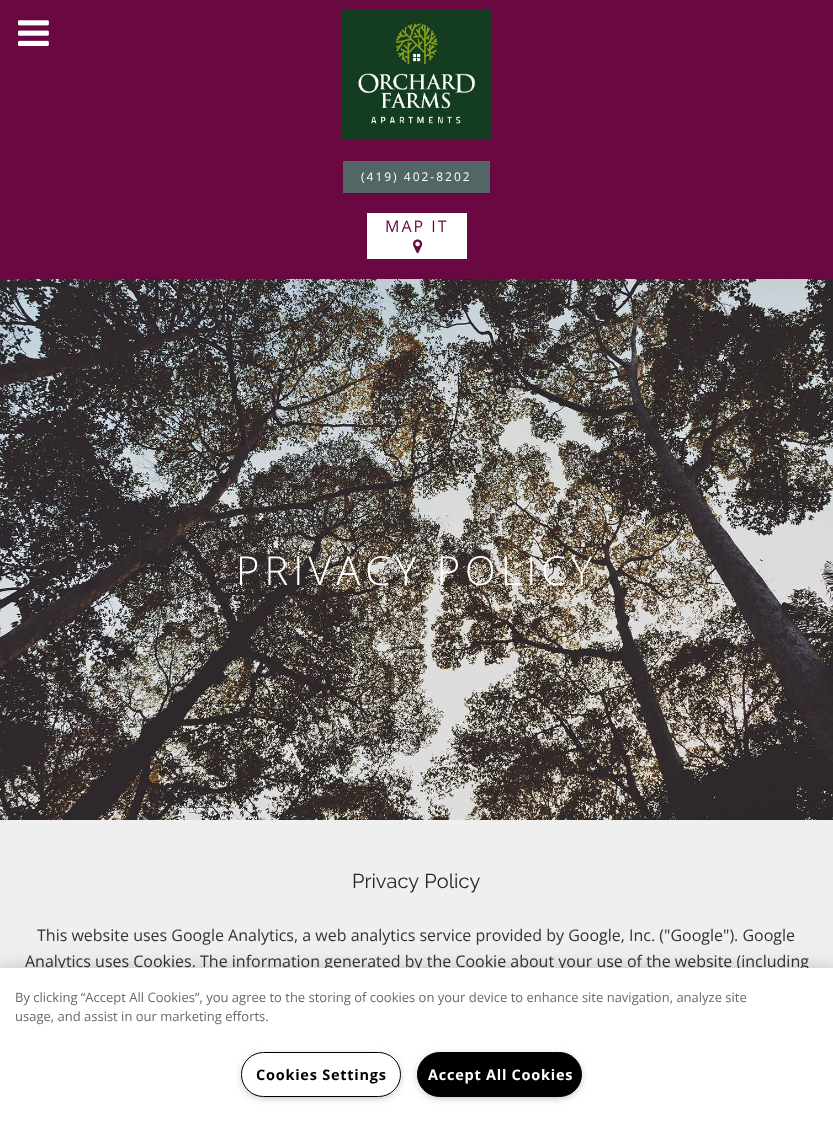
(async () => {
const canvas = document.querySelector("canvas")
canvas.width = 833
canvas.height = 1122
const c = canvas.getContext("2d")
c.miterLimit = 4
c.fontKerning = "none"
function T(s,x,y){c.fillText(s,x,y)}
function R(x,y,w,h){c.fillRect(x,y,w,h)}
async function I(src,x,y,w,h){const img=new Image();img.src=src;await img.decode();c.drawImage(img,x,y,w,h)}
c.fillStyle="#efefef"
R(0,0,833,1122)
c.fillStyle="#6a0842"
R(0,0,833,279)
await I("1.png",341,10,151,130)
await I("2.png",18,20,31,26)
c.fillStyle="#526665"
R(343,161,147,32)
c.letterSpacing="2px"
c.font="12px Open Sans"
c.fillStyle="#fff"
T("(419) 402-8202",361,181)
R(367,213,100,46)
c.font="16px Open Sans"
c.fillStyle="#6a0842"
T("MAP IT",385,232)
await I("3.png",413,239,10,15)
await I("4.png",0,279,833,541)
c.letterSpacing="5px"
c.font="300 40px Open Sans"
c.fillStyle="#fff"
T("PRIVACY POLICY",236,585)
c.letterSpacing="0px"
c.font="20px Raleway"
c.fillStyle="#262425"
T("Privacy Policy",352,888)
c.font="16px Open Sans"
c.fillStyle="#333"
T("This website uses Google Analytics, a web analytics service provided by Google, Inc. (\"Google\"). Google",37,941)
T("Analytics uses Cookies. The information generated by the Cookie about your use of the website (including",25,967)
c.fillStyle="#00000033"
c.filter="blur(9px)"
c.beginPath()
c.rect(0,968,833,154)
c.fill()
c.filter="none"
c.fillStyle="#fff"
R(0,968,833,154)
c.font="13px Open Sans"
c.fillStyle="#696969"
T("By clicking “Accept All Cookies”, you agree to the storing of cookies on your device to enhance site navigation, analyze site",15,1002)
T("usage, and assist in our marketing efforts.",15,1021)
c.fillStyle="#999"
c.filter="blur(5px)"
c.beginPath()
c.roundRect(244,1057,154,39,19.5)
c.fill()
c.filter="none"
c.fillStyle="#fff"
c.beginPath()
c.roundRect(241.5,1052.5,159,44,22)
c.fill()
c.strokeStyle="#000"
c.stroke()
c.letterSpacing="0.75px"
c.font="bold 14.5px Open Sans"
c.fillStyle="#000"
T("Cookies Settings",256,1080)
c.fillStyle="#999"
c.filter="blur(5px)"
c.beginPath()
c.roundRect(420,1057,159,39,19.5)
c.fill()
c.filter="none"
c.fillStyle="#000"
c.beginPath()
c.roundRect(417.5,1052.5,164,44,22)
c.fill()
c.stroke()
c.fillStyle="#fff"
T("Accept All Cookies",428,1080)
})()
